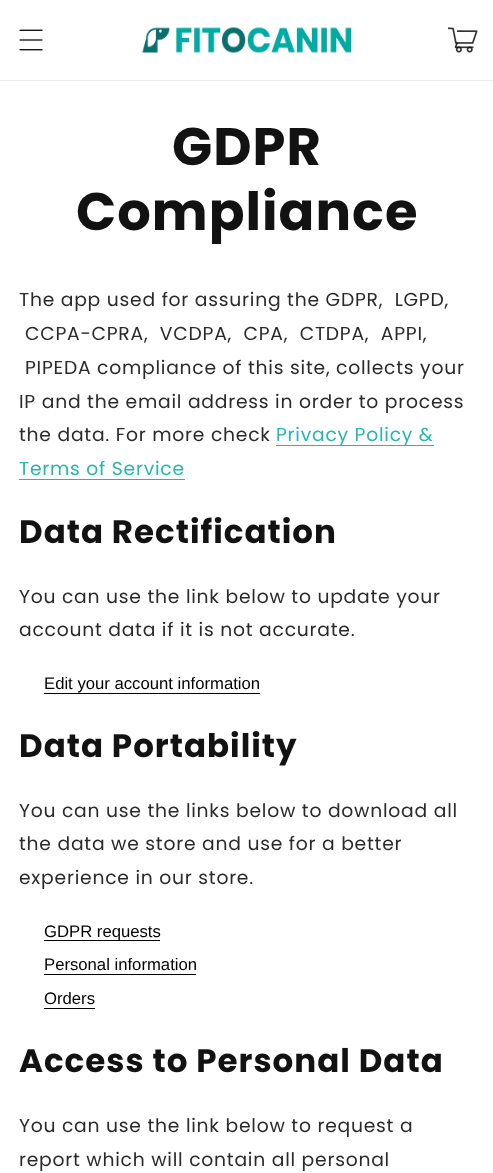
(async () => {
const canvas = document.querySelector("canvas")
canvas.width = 493
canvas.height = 1173
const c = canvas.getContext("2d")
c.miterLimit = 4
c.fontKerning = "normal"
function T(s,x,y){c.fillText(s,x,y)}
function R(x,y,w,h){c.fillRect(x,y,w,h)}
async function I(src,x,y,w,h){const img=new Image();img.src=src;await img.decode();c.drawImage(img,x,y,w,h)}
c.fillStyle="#fff"
R(0,0,493,1173)
c.fillStyle="#ececec"
R(0,80,493,1)
await I("1.png",19,29,24,22)
await I("2.png",142,27,210,26)
await I("3.png",448,27,30,26)
c.letterSpacing="1px"
c.font="bold 52.75px Poppins"
c.fillStyle="#121212"
T("GDPR",172,165)
T("Compliance",76,230)
c.letterSpacing="0.75px"
c.font="18.75px Poppins"
c.fillStyle="#2a2a2a"
T("The app used for assuring the GDPR,  LGPD,",19,306)
T("CCPA-CPRA,  VCDPA,  CPA,  CTDPA,  APPI,",25,340)
T("PIPEDA compliance of this site, collects your",25,374)
T("IP and the email address in order to process",19,408)
T("the data. For more check",19,441)
c.fillStyle="#28b5b0"
R(276,445,158,1)
T("Privacy Policy &",276,441)
T("Terms of Service",19,475)
R(19,479,166,1)
c.letterSpacing="1px"
c.font="bold 32.5px Poppins"
c.fillStyle="#121212"
T("Data Rectification",19,543)
c.letterSpacing="0.75px"
c.font="18.75px Poppins"
c.fillStyle="#2a2a2a"
T("You can use the link below to update your",19,603)
T("account data if it is not accurate.",19,636)
c.fillStyle="#000"
R(44,693,216,1)
c.letterSpacing="0px"
c.font="16.7px Liberation Sans"
T("Edit your account information",44,689)
c.letterSpacing="1px"
c.font="bold 32.5px Poppins"
c.fillStyle="#121212"
T("Data Portability",19,757)
c.letterSpacing="0.75px"
c.font="18.75px Poppins"
c.fillStyle="#2a2a2a"
T("You can use the links below to download all",19,817)
T("the data we store and use for a better",19,850)
T("experience in our store.",19,884)
c.fillStyle="#000"
R(44,940,116,1)
c.letterSpacing="0px"
c.font="16.7px Liberation Sans"
T("GDPR requests",44,937)
R(44,974,152,1)
T("Personal information",44,970)
R(44,1008,51,1)
T("Orders",44,1004)
c.letterSpacing="1px"
c.font="bold 32.5px Poppins"
c.fillStyle="#121212"
T("Access to Personal Data",19,1072)
c.letterSpacing="0.75px"
c.font="18.75px Poppins"
c.fillStyle="#2a2a2a"
T("You can use the link below to request a",19,1132)
T("report which will contain all personal",19,1166)
})()
